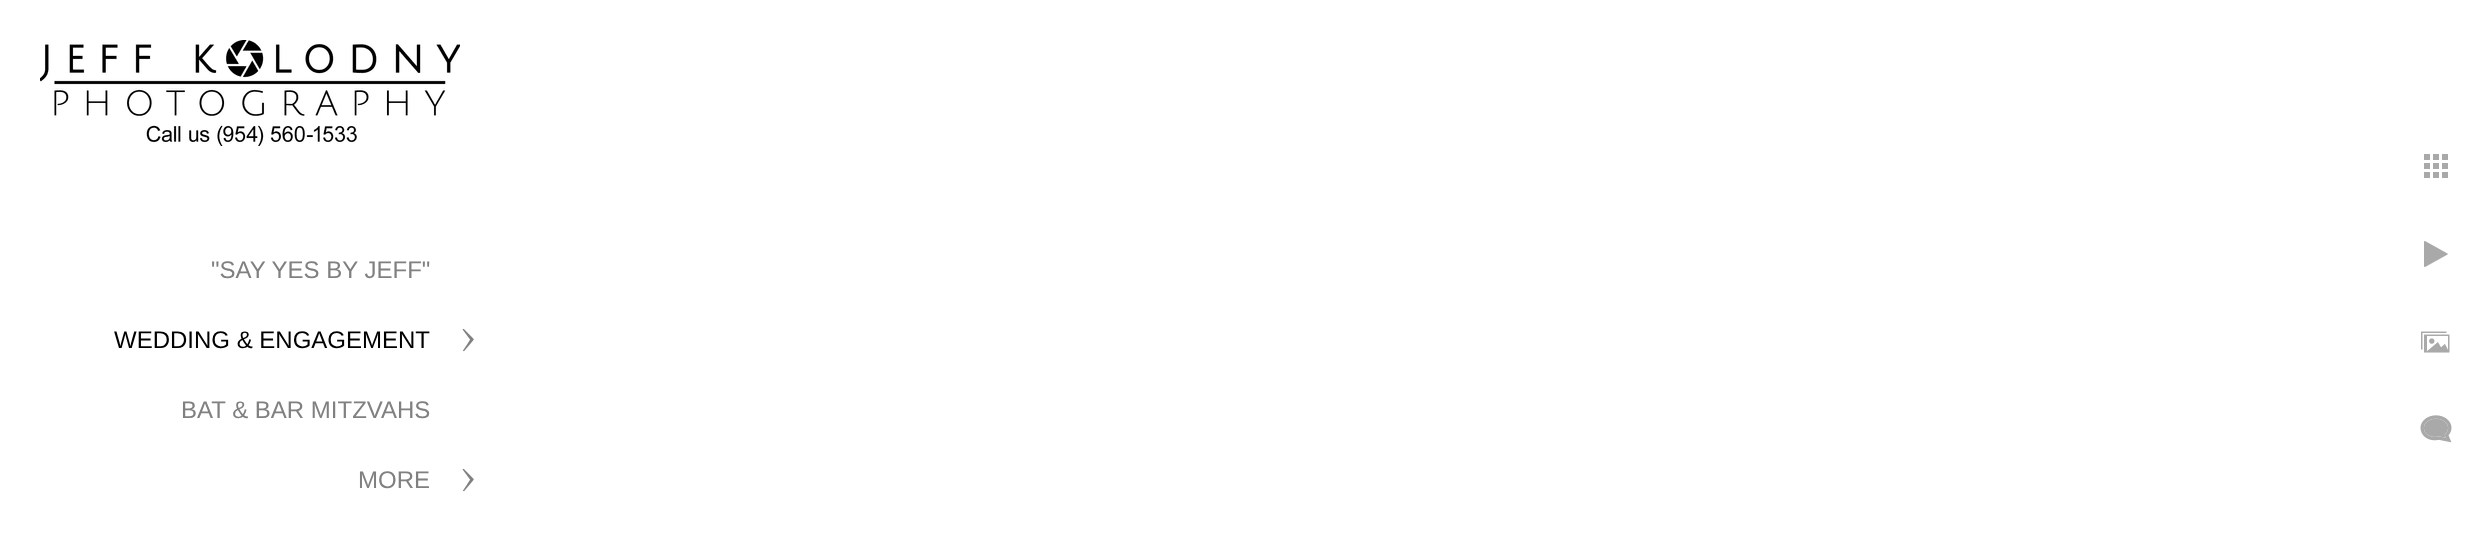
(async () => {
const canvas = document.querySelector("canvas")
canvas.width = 2490
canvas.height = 555
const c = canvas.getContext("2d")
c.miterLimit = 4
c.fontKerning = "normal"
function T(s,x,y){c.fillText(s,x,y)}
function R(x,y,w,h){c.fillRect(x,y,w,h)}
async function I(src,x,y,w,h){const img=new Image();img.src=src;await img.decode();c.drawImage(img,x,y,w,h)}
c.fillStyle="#fff"
R(0,0,2490,555)
await I("1.png",40,40,420,106)
c.font="24px Liberation Sans"
c.fillStyle="#808080"
T("\"SAY YES BY JEFF\"",211,278)
c.fillStyle="#000"
T("WEDDING & ENGAGEMENT",114,348)
await I("2.png",462,328,12,24)
c.fillStyle="#808080"
T("BAT & BAR MITZVAHS",181,418)
T("MORE",358,488)
await I("2.png",462,468,12,24)
await I("3.png",2424,154,24,24)
await I("4.png",2424,241,24,26)
await I("5.png",2421,331,29,22)
await I("6.png",2420,415,32,28)
})()
